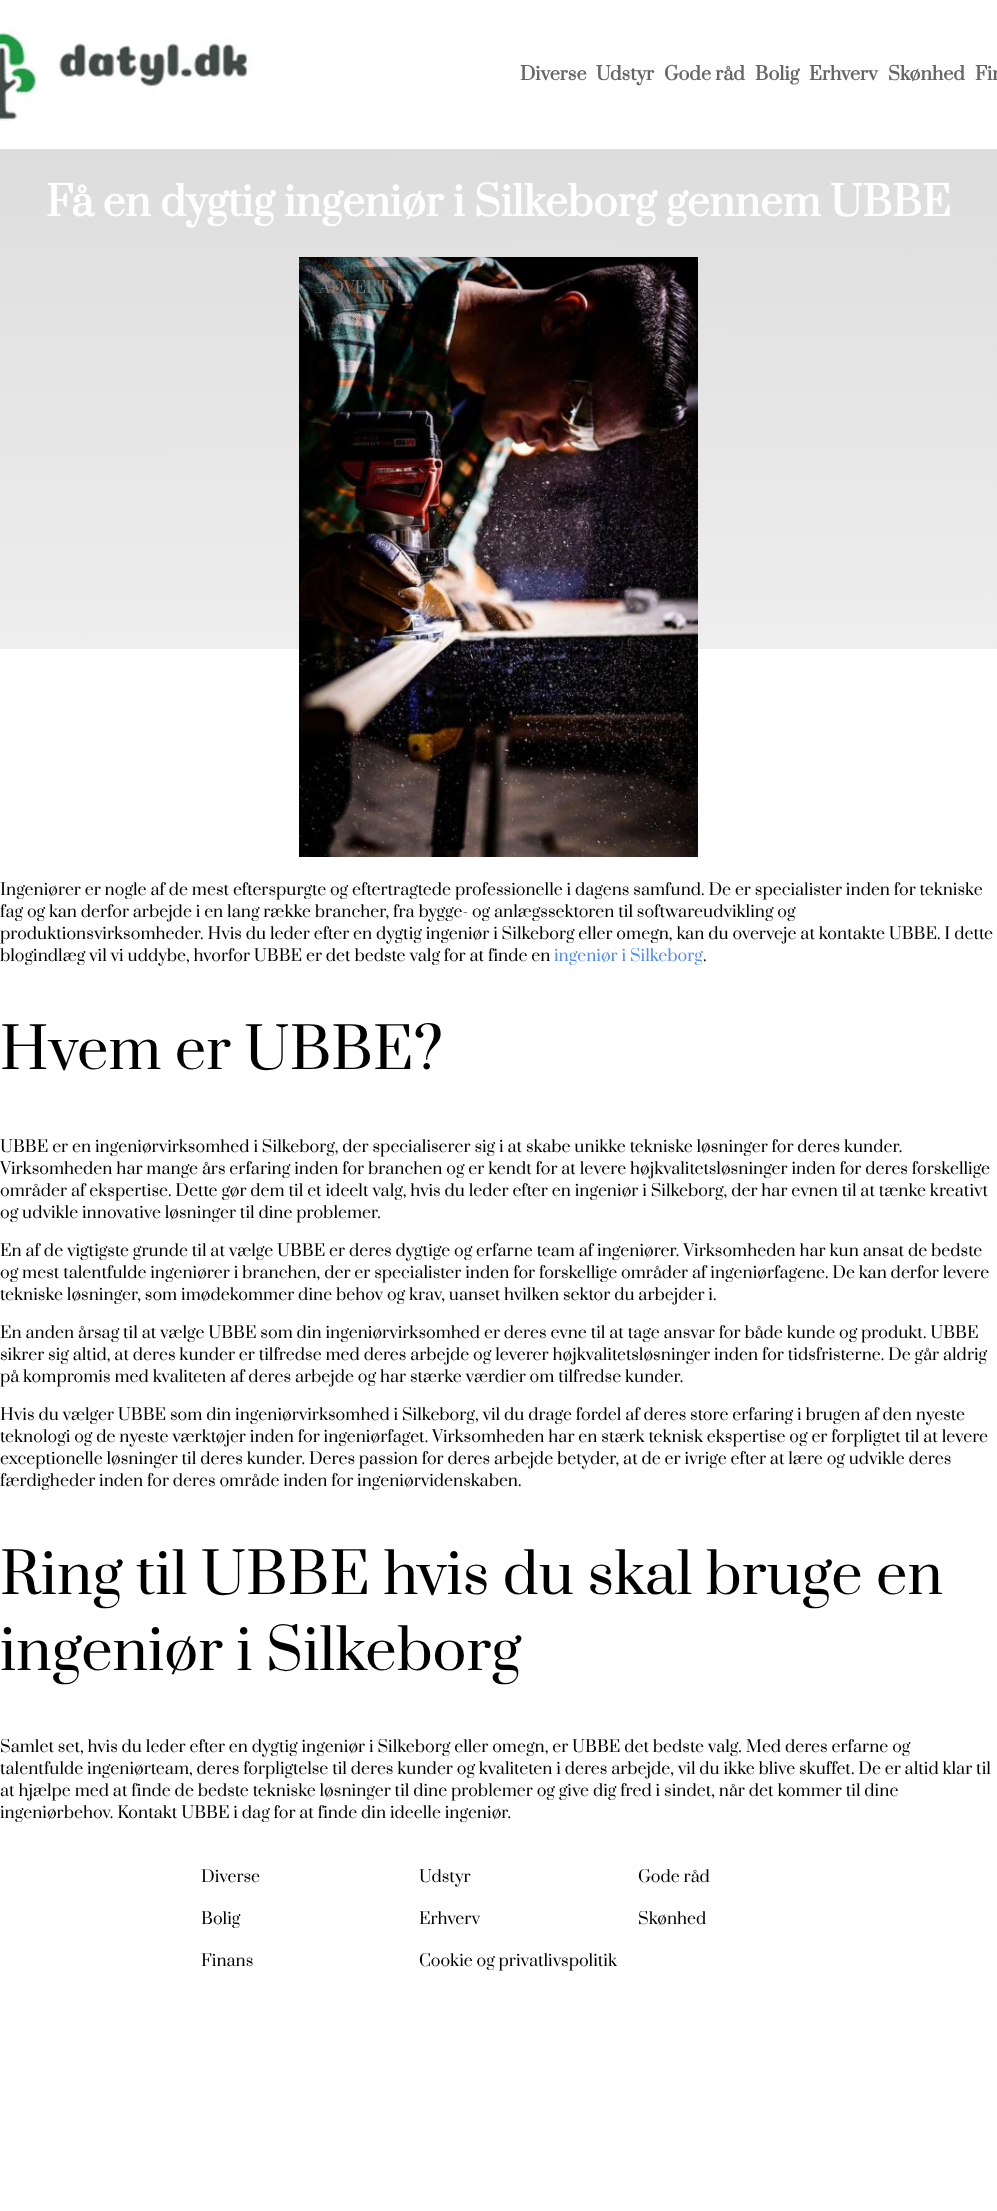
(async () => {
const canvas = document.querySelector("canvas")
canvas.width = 997
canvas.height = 2211
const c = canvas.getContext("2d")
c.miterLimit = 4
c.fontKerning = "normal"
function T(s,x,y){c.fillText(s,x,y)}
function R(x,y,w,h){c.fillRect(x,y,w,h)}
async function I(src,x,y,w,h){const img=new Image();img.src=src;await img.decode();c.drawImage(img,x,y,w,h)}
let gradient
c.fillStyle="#fff"
R(0,0,997,2211)
await I("1.png",0,21,252,100)
c.font="bold 18px Prata"
c.fillStyle="#666"
T("Diverse",520,80)
T("Udstyr",596,80)
T("Gode råd",664,80)
T("Bolig",755,80)
T("Erhverv",809,80)
T("Skønhed",888,80)
T("Fin",975,80)
gradient = c.createLinearGradient(498,149,499,649)
gradient.addColorStop(0,"#ddd")
gradient.addColorStop(1,"#eee")
c.fillStyle = gradient
R(0,149,997,500)
c.font="bold 40px Prata"
c.fillStyle="#fff"
T("Få en dygtig ingeniør i Silkeborg gennem UBBE",46,216)
await I("2.png",299,257,399,600)
c.fillStyle="#0000004d"
R(309,267,89,42)
c.font="16px Prata"
c.fillStyle="#777b79"
T("ADVERT",319,293)
c.fillStyle="#000"
T("Ingeniører er nogle af de mest efterspurgte og eftertragtede professionelle i dagens samfund. De er specialister inden for tekniske",0,895)
T("fag og kan derfor arbejde i en lang række brancher, fra bygge- og anlægssektoren til softwareudvikling og",0,917)
T("produktionsvirksomheder. Hvis du leder efter en dygtig ingeniør i Silkeborg eller omegn, kan du overveje at kontakte UBBE. I dette",0,939)
T("blogindlæg vil vi uddybe, hvorfor UBBE er det bedste valg for at finde en",0,961)
c.fillStyle="#4f8bf9"
T("ingeniør i Silkeborg",554,961)
c.fillStyle="#000"
T(".",703,961)
c.font="56px Prata"
T("Hvem er UBBE?",0,1069)
c.font="16px Prata"
T("UBBE er en ingeniørvirksomhed i Silkeborg, der specialiserer sig i at skabe unikke tekniske løsninger for deres kunder.",0,1152)
T("Virksomheden har mange års erfaring inden for branchen og er kendt for at levere højkvalitetsløsninger inden for deres forskellige",0,1174)
T("områder af ekspertise. Dette gør dem til et ideelt valg, hvis du leder efter en ingeniør i Silkeborg, der har evnen til at tænke kreativt",0,1196)
T("og udvikle innovative løsninger til dine problemer.",0,1218)
T("En af de vigtigste grunde til at vælge UBBE er deres dygtige og erfarne team af ingeniører. Virksomheden har kun ansat de bedste",0,1256)
T("og mest talentfulde ingeniører i branchen, der er specialister inden for forskellige områder af ingeniørfagene. De kan derfor levere",0,1278)
T("tekniske løsninger, som imødekommer dine behov og krav, uanset hvilken sektor du arbejder i.",0,1300)
T("En anden årsag til at vælge UBBE som din ingeniørvirksomhed er deres evne til at tage ansvar for både kunde og produkt. UBBE",0,1338)
T("sikrer sig altid, at deres kunder er tilfredse med deres arbejde og leverer højkvalitetsløsninger inden for tidsfristerne. De går aldrig",0,1360)
T("på kompromis med kvaliteten af deres arbejde og har stærke værdier om tilfredse kunder.",0,1382)
T("Hvis du vælger UBBE som din ingeniørvirksomhed i Silkeborg, vil du drage fordel af deres store erfaring i brugen af den nyeste",0,1420)
T("teknologi og de nyeste værktøjer inden for ingeniørfaget. Virksomheden har en stærk teknisk ekspertise og er forpligtet til at levere",0,1442)
T("exceptionelle løsninger til deres kunder. Deres passion for deres arbejde betyder, at de er ivrige efter at lære og udvikle deres",0,1464)
T("færdigheder inden for deres område inden for ingeniørvidenskaben.",0,1486)
c.font="56px Prata"
T("Ring til UBBE hvis du skal bruge en",0,1594)
T("ingeniør i Silkeborg",0,1670)
c.font="16px Prata"
T("Samlet set, hvis du leder efter en dygtig ingeniør i Silkeborg eller omegn, er UBBE det bedste valg. Med deres erfarne og",0,1752)
T("talentfulde ingeniørteam, deres forpligtelse til deres kunder og kvaliteten i deres arbejde, vil du ikke blive skuffet. De er altid klar til",0,1774)
T("at hjælpe med at finde de bedste tekniske løsninger til dine problemer og give dig fred i sindet, når det kommer til dine",0,1796)
T("ingeniørbehov. Kontakt UBBE i dag for at finde din ideelle ingeniør.",0,1818)
T("Diverse",201,1882)
T("Udstyr",419,1882)
T("Gode råd",638,1882)
T("Bolig",201,1924)
T("Erhverv",419,1924)
T("Skønhed",638,1924)
T("Finans",201,1966)
T("Cookie og privatlivspolitik",419,1966)
})()
